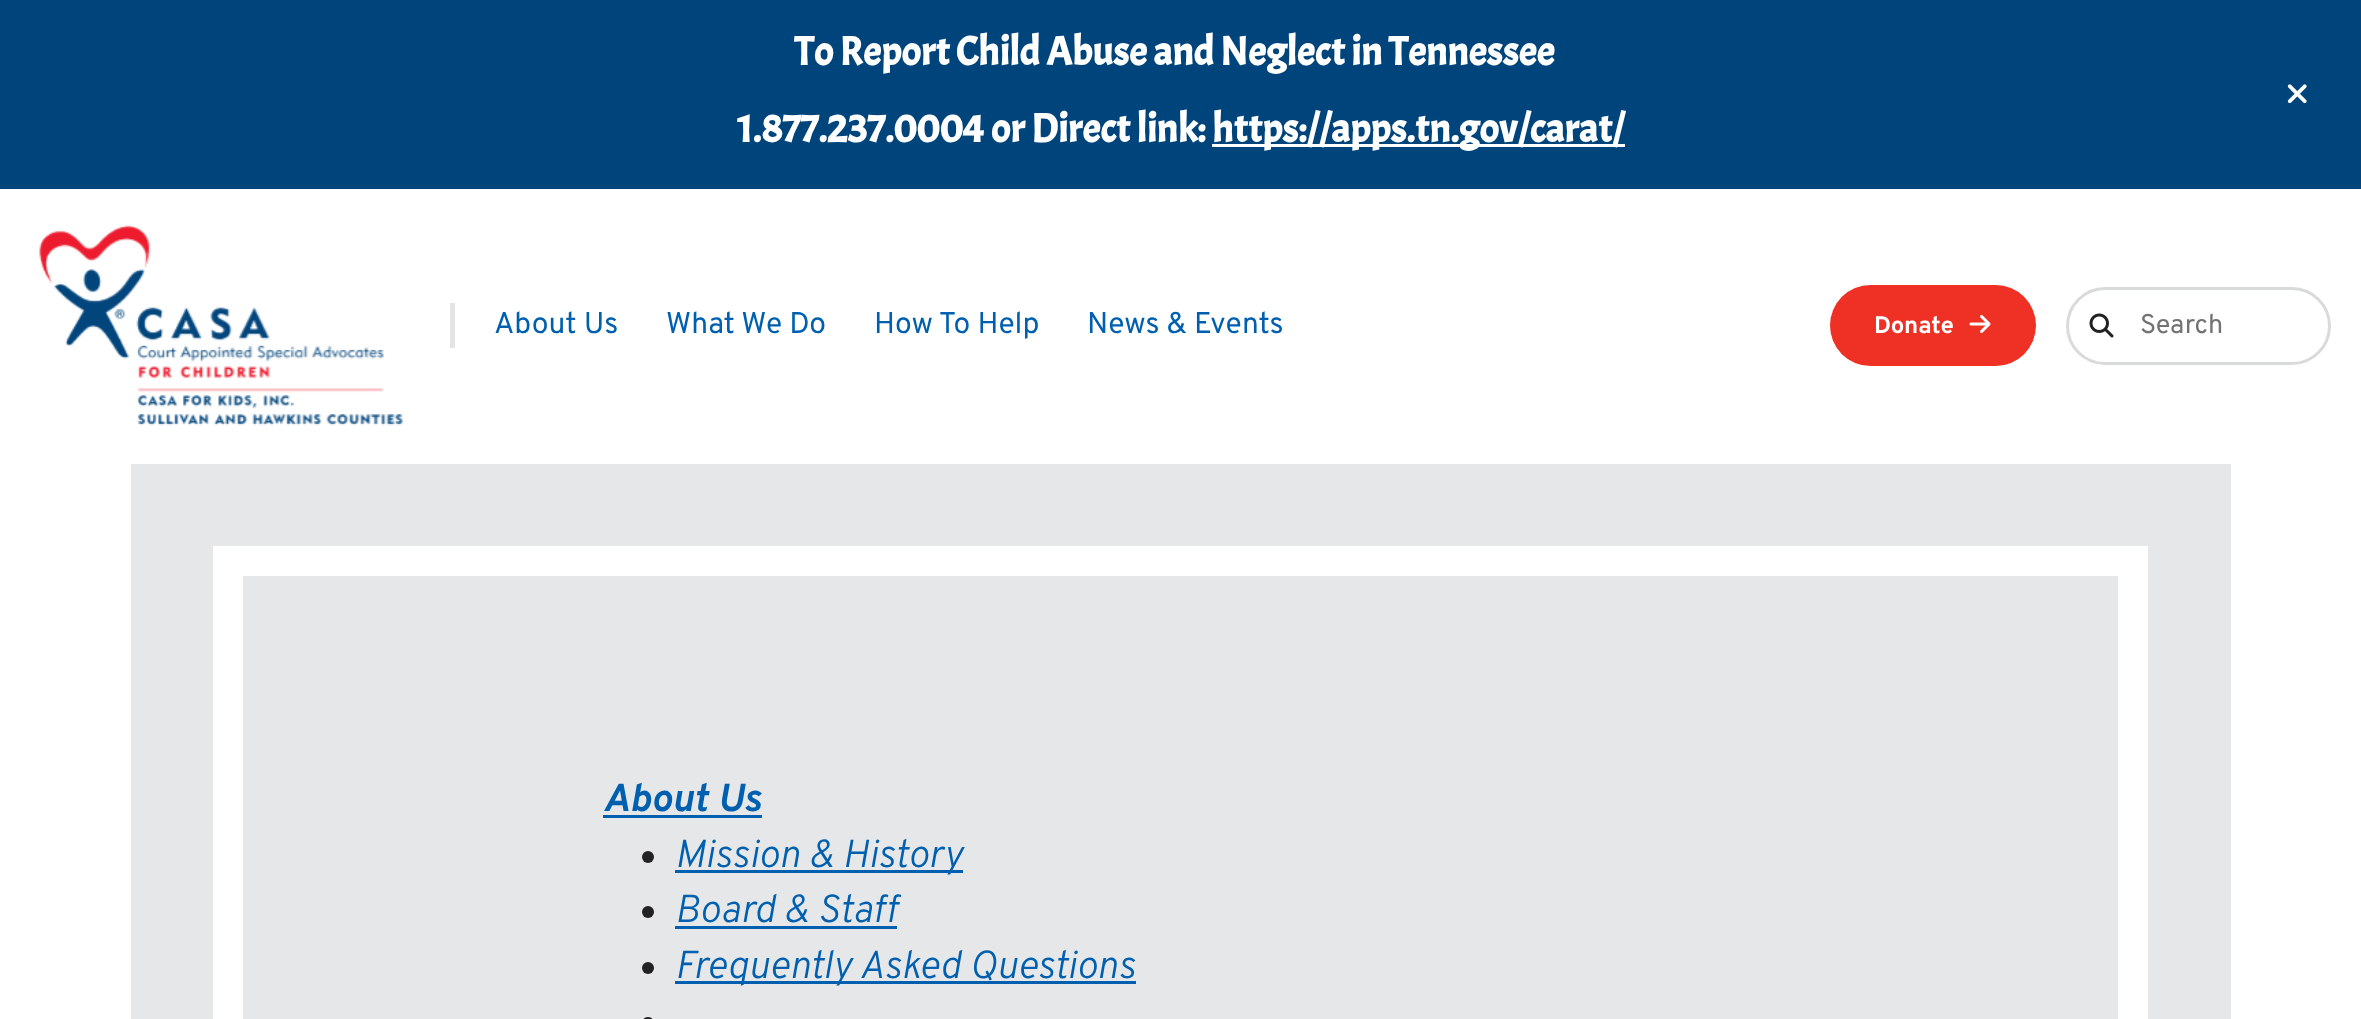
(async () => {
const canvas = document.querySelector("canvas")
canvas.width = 2361
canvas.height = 1019
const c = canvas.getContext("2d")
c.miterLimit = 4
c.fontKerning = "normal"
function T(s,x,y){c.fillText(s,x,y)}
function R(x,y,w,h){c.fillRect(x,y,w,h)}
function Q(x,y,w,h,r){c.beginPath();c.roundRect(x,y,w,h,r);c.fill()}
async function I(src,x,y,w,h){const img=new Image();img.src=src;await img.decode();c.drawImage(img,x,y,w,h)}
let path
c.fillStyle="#fff"
R(0,0,2361,1019)
c.fillStyle="#00447c"
R(0,0,2361,189)
c.font="bold 40.5px Acme"
c.fillStyle="#fff"
T("To Report Child Abuse and Neglect in Tennessee",794,65)
T("1.877.237.0004 or Direct link:",737,142)
R(1212,144,413,3)
T("https://apps.tn.gov/carat/",1212,142)
await I("1.png",2287,84,20,20)
await I("2.png",39,225,365,201)
c.fillStyle="#e4e4e4"
R(450,303,5,45)
c.font="30px Overpass"
c.fillStyle="#0060af"
T("About Us",494,333)
T("What We Do",666,333)
T("How To Help",874,333)
T("News & Events",1087,333)
c.fillStyle="#ee3124"
Q(1830,285,206,81,40.5)
c.font="bold 24px Overpass"
c.fillStyle="#fff"
T("Donate",1874,333)
await I("3.png",1969,315,22,18)
c.beginPath()
c.roundRect(2067.5,288.5,262,75,37.5)
c.strokeStyle="#d9dada"
c.lineWidth=3
c.stroke()
await I("4.png",2089,313,25,25)
c.font="27px Overpass"
c.fillStyle="#727272"
T("Search",2140,333)
c.fillStyle="#e6e7e8"
R(131,464,2100,555)
c.strokeStyle="#fff"
c.lineWidth=30
c.strokeRect(228,561,1905,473)
c.font="italic bold 39px Overpass"
c.fillStyle="#0060af"
T("About Us",603,811)
R(603,815,159,3)
c.fillStyle="#222"
c.beginPath()
c.arc(648,857,6,0,7)
c.fill()
c.fillStyle="#0060af"
R(675,870,288,3)
c.font="italic 300 39px Overpass"
T("Mission & History",675,867)
c.fillStyle="#222"
c.beginPath()
c.arc(648,912,6,0,7)
c.fill()
c.fillStyle="#0060af"
T("Board & Staff",675,922)
R(675,926,222,3)
c.fillStyle="#222"
c.beginPath()
c.arc(648,968,6,0,7)
c.fill()
c.fillStyle="#0060af"
R(675,981,461,3)
T("Frequently Asked Questions",675,978)
c.fillStyle="#222"
path = new Path2D("M648 1017c3.5 0 6 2.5 6 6v-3h-12v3c0-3.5 2.5-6 6-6z")
c.fill(path)
})()
